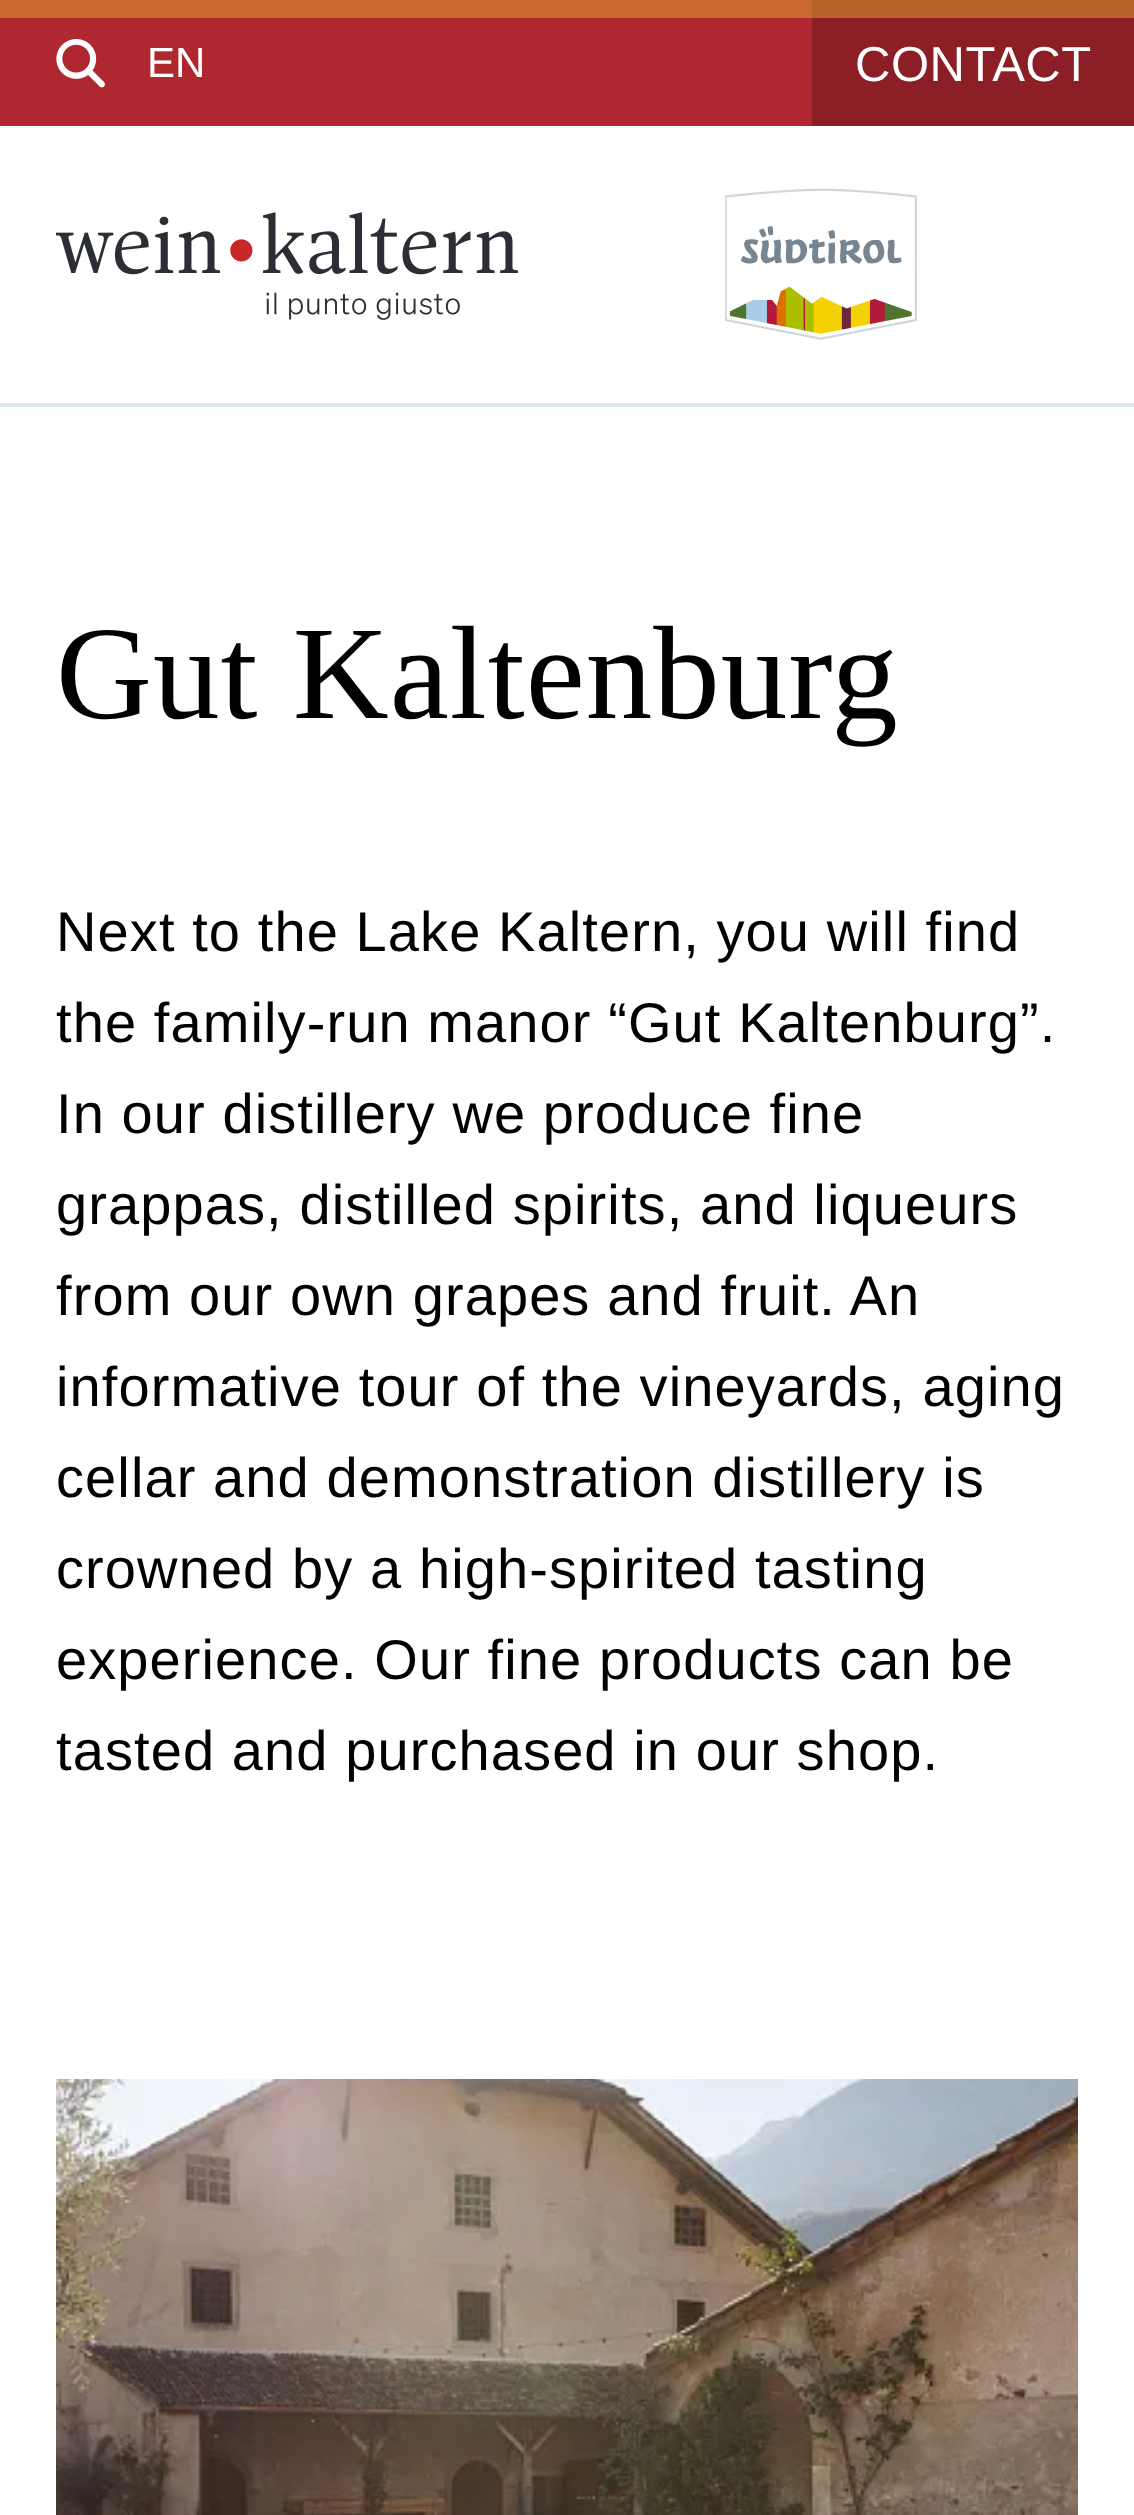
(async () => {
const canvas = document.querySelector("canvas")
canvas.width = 1134
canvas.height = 2515
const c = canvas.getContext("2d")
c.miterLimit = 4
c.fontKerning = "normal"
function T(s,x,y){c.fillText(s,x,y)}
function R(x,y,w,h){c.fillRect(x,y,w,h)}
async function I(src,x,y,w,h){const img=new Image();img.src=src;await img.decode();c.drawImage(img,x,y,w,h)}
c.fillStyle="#fff"
R(0,0,1134,2515)
c.fillStyle="#af272f"
R(0,18,812,108)
c.fillStyle="#cb6730"
R(0,0,812,18)
await I("1.png",56,39,49,49)
c.font="42px Liberation Sans"
c.fillStyle="#fff"
T("EN",147,77)
c.fillStyle="#8c1f26"
R(812,18,322,108)
c.fillStyle="#b9632b"
R(812,0,322,18)
c.letterSpacing="0.5px"
c.font="49px Liberation Sans"
c.fillStyle="#fff"
T("CONTACT",855,81)
c.fillStyle="#dce8f0"
R(0,403,1134,4)
await I("2.png",56,212,462,108)
await I("3.png",725,188,192,152)
c.letterSpacing="1px"
c.font="133px Liberation Serif"
c.fillStyle="#000"
T("Gut Kaltenburg",56,718)
c.letterSpacing="1.1px"
c.font="56px Liberation Sans"
T("Next to the Lake Kaltern, you will find",56,951)
T("the family-run manor “Gut Kaltenburg”.",56,1042)
T("In our distillery we produce fine",56,1133)
T("grappas, distilled spirits, and liqueurs",56,1224)
T("from our own grapes and fruit. An",56,1315)
T("informative tour of the vineyards, aging",56,1406)
T("cellar and demonstration distillery is",56,1497)
T("crowned by a high-spirited tasting",56,1588)
T("experience. Our fine products can be",56,1679)
T("tasted and purchased in our shop.",56,1770)
await I("4.png",56,2079,1022,436)
})()
